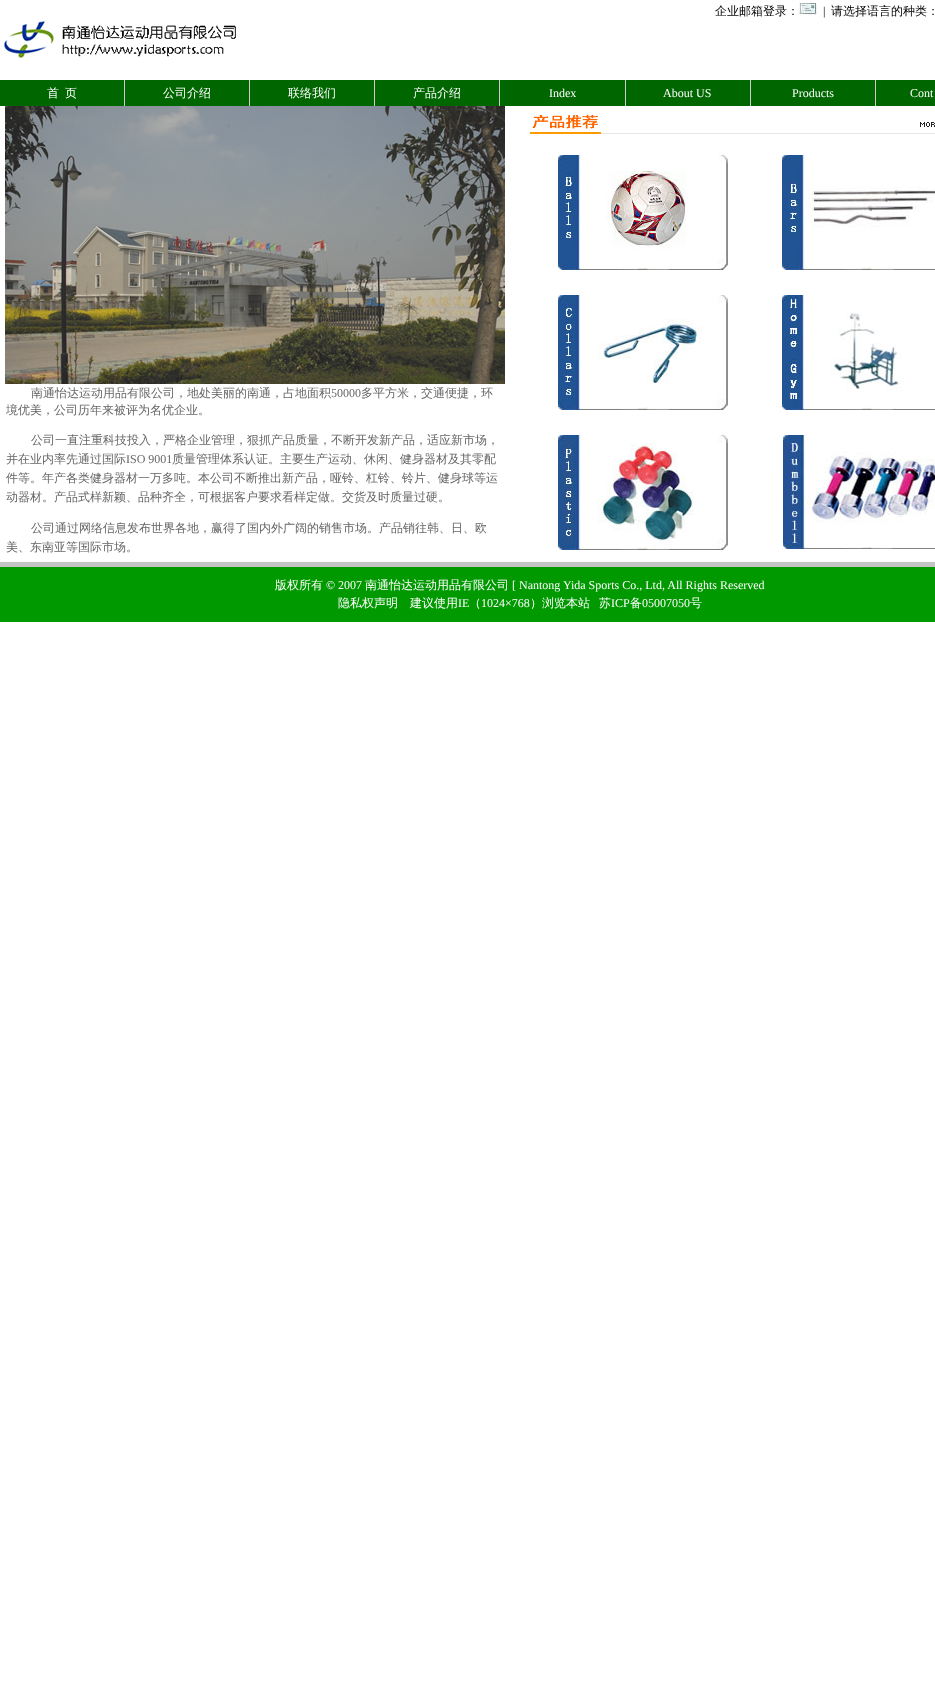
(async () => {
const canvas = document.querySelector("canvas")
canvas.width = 935
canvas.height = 1691
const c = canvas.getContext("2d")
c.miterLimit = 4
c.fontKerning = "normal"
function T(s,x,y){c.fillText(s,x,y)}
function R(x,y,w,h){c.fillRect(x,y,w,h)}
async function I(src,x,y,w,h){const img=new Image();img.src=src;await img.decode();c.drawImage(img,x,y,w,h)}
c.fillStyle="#fff"
R(0,0,935,1691)
c.font="500 12px WenQuanYi Zen Hei"
c.fillStyle="#000"
T("企业邮箱登录：",715,15)
await I("1.png",799,3,18,12)
c.font="12px Liberation Serif"
T("|",823,15)
c.font="500 12px WenQuanYi Zen Hei"
T("请选择语言的种类：",831,15)
await I("2.png",4,21,232,37)
c.fillStyle="#060"
R(0,80,935,26)
c.fillStyle="#fff"
T("首",47,97)
T("页",65,97)
c.fillStyle="#ccc"
R(124,80,1,26)
c.fillStyle="#fff"
T("公司介绍",163,97)
c.fillStyle="#ccc"
R(249,80,1,26)
c.fillStyle="#fff"
T("联络我们",288,97)
c.fillStyle="#ccc"
R(374,80,1,26)
c.fillStyle="#fff"
T("产品介绍",413,97)
c.fillStyle="#ccc"
R(499,80,1,26)
c.font="12px Liberation Serif"
c.fillStyle="#fff"
T("Index",549,97)
c.fillStyle="#ccc"
R(625,80,1,26)
c.fillStyle="#fff"
T("About US",663,97)
c.fillStyle="#ccc"
R(750,80,1,26)
c.fillStyle="#fff"
T("Products",792,97)
c.fillStyle="#ccc"
R(875,80,1,26)
c.fillStyle="#fff"
T("Cont",910,97)
await I("3.png",5,106,500,278)
c.font="500 12px WenQuanYi Zen Hei"
c.fillStyle="#666"
T("南通怡达运动用品有限公司，地处美丽的南通，占地面积",31,397)
c.font="12px Liberation Serif"
T("50000",331,397)
c.font="500 12px WenQuanYi Zen Hei"
T("多平方米，交通便捷，环",361,397)
T("境优美，公司历年来被评为名优企业。",6,414)
T("公司一直注重科技投入，严格企业管理，狠抓产品质量，不断开发新产品，适应新市场，",31,444)
T("并在业内率先通过国际",6,463)
c.font="12px Liberation Serif"
T("ISO 9001",126,463)
c.font="500 12px WenQuanYi Zen Hei"
T("质量管理体系认证。主要生产运动、休闲、健身器材及其零配",172,463)
T("件等。年产各类健身器材一万多吨。本公司不断推出新产品，哑铃、杠铃、铃片、健身球等运",6,482)
T("动器材。产品式样新颖、品种齐全，可根据客户要求看样定做。交货及时质量过硬。",6,501)
T("公司通过网络信息发布世界各地，赢得了国内外广阔的销售市场。产品销往韩、日、欧",31,532)
T("美、东南亚等国际市场。",6,551)
await I("4.png",530,114,405,20)
await I("5.png",558,155,170,115)
await I("6.png",782,155,153,115)
await I("7.png",558,295,170,115)
await I("8.png",782,295,153,115)
await I("9.png",558,435,170,115)
await I("10.png",783,435,152,114)
c.fillStyle="#c4c4c4"
R(0,562,935,5)
c.fillStyle="#090"
R(0,567,935,55)
c.fillStyle="#fff"
T("版权所有",275,589)
c.font="12px Liberation Serif"
T("© 2007",326,589)
c.font="500 12px WenQuanYi Zen Hei"
T("南通怡达运动用品有限公司",365,589)
c.font="12px Liberation Serif"
T("[ Nantong Yida Sports Co., Ltd, All Rights Reserved",512,589)
c.font="500 12px WenQuanYi Zen Hei"
T("隐私权声明",338,607)
T("建议使用",410,607)
c.font="12px Liberation Serif"
T("IE",458,607)
c.font="500 12px WenQuanYi Zen Hei"
T("（",469,607)
c.font="12px Liberation Serif"
T("1024×768",481,607)
c.font="500 12px WenQuanYi Zen Hei"
T("）浏览本站",530,607)
T("苏",599,607)
c.font="12px Liberation Serif"
T("ICP",611,607)
c.font="500 12px WenQuanYi Zen Hei"
T("备",630,607)
c.font="12px Liberation Serif"
T("05007050",642,607)
c.font="500 12px WenQuanYi Zen Hei"
T("号",690,607)
})()
